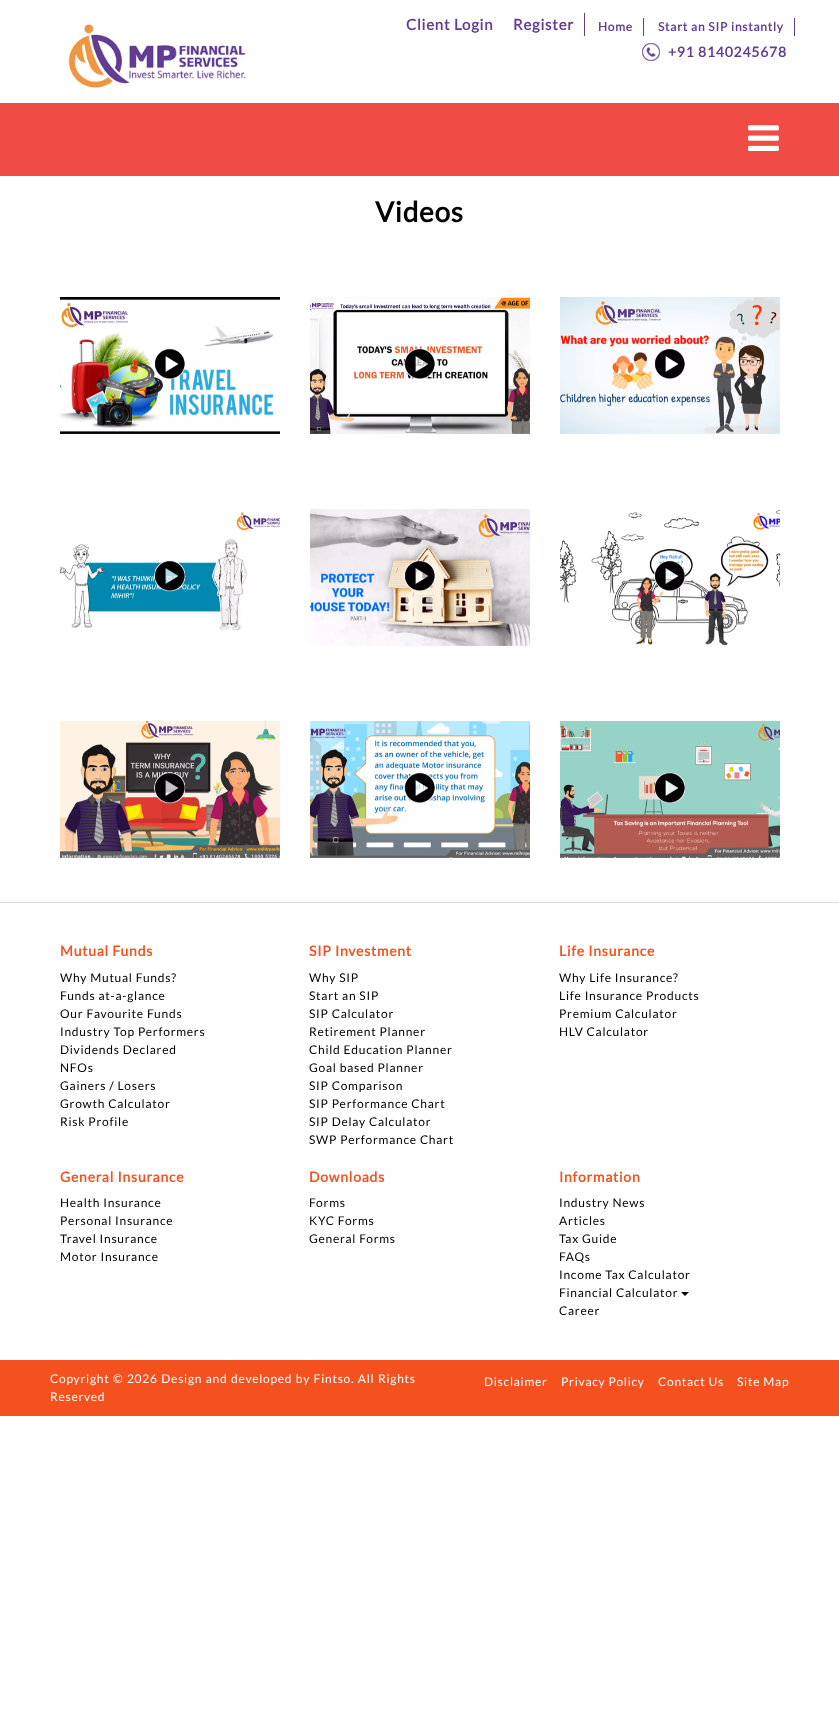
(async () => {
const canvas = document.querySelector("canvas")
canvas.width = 839
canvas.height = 1730
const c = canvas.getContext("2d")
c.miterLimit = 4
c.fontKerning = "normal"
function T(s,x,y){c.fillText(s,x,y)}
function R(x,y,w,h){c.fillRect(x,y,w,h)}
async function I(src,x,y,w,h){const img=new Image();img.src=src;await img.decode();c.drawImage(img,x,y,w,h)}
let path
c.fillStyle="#fff"
R(0,0,839,1730)
await I("1.png",68,24,178,64)
c.fillStyle="#613d94"
R(584,13,1,23)
c.letterSpacing="0.75px"
c.font="bold 15px Lato"
T("Client Login",406,30)
T("Register",513,30)
R(643,18,1,18)
c.font="bold 12px Lato"
T("Home",598,31)
R(794,18,1,18)
T("Start an SIP instantly",658,31)
await I("2.png",642,43,18,18)
c.font="bold 14px Lato"
T("+91 8140245678",668,57)
c.fillStyle="#f04b45"
R(0,103,839,73)
await I("3.png",748,125,31,26)
c.font="bold 28px Lato"
c.fillStyle="#000"
T("Videos",375,222)
await I("4.png",60,297,220,137)
await I("5.png",310,297,220,137)
await I("6.png",560,297,220,137)
await I("7.png",60,512,220,119)
await I("8.png",310,509,220,137)
await I("9.png",560,510,220,136)
await I("10.png",60,721,220,137)
await I("11.png",310,721,220,137)
await I("12.png",560,721,220,137)
c.fillStyle="#ddd"
R(0,902,839,1)
c.font="bold 14px Lato"
c.fillStyle="#f4511e"
T("Mutual Funds",60,956)
c.font="12px Lato"
c.fillStyle="#000"
T("Why Mutual Funds?",60,982)
T("Funds at-a-glance",60,1000)
T("Our Favourite Funds",60,1018)
T("Industry Top Performers",60,1036)
T("Dividends Declared",60,1054)
T("NFOs",60,1072)
T("Gainers / Losers",60,1090)
T("Growth Calculator",60,1108)
T("Risk Profile",60,1126)
c.font="bold 14px Lato"
c.fillStyle="#f4511e"
T("SIP Investment",309,956)
c.font="12px Lato"
c.fillStyle="#000"
T("Why SIP",309,982)
T("Start an SIP",309,1000)
T("SIP Calculator",309,1018)
T("Retirement Planner",309,1036)
T("Child Education Planner",309,1054)
T("Goal based Planner",309,1072)
T("SIP Comparison",309,1090)
T("SIP Performance Chart",309,1108)
T("SIP Delay Calculator",309,1126)
T("SWP Performance Chart",309,1144)
c.font="bold 14px Lato"
c.fillStyle="#f4511e"
T("Life Insurance",559,956)
c.font="12px Lato"
c.fillStyle="#000"
T("Why Life Insurance?",559,982)
T("Life Insurance Products",559,1000)
T("Premium Calculator",559,1018)
T("HLV Calculator",559,1036)
c.font="bold 14px Lato"
c.fillStyle="#f4511e"
T("General Insurance",60,1182)
c.font="12px Lato"
c.fillStyle="#000"
T("Health Insurance",60,1207)
T("Personal Insurance",60,1225)
T("Travel Insurance",60,1243)
T("Motor Insurance",60,1261)
c.font="bold 14px Lato"
c.fillStyle="#f4511e"
T("Downloads",309,1182)
c.font="12px Lato"
c.fillStyle="#000"
T("Forms",309,1207)
T("KYC Forms",309,1225)
T("General Forms",309,1243)
c.font="bold 14px Lato"
c.fillStyle="#f4511e"
T("Information",559,1182)
c.font="12px Lato"
c.fillStyle="#000"
T("Industry News",559,1207)
T("Articles",559,1225)
T("Tax Guide",559,1243)
T("FAQs",559,1261)
T("Income Tax Calculator",559,1279)
T("Financial Calculator",559,1297)
path = new Path2D("M681 1292h8l-4 4z")
c.fill(path)
T("Career",559,1315)
c.fillStyle="#f4511e"
R(0,1360,839,56)
c.wordSpacing="0.5px"
c.fillStyle="#fff"
T("Copyright © 2026 Design and developed by Fintso. All Rights",50,1383)
c.wordSpacing="0px"
T("Reserved",50,1401)
T("Disclaimer",484,1386)
T("Privacy Policy",561,1386)
T("Contact Us",658,1386)
T("Site Map",737,1386)
})()
